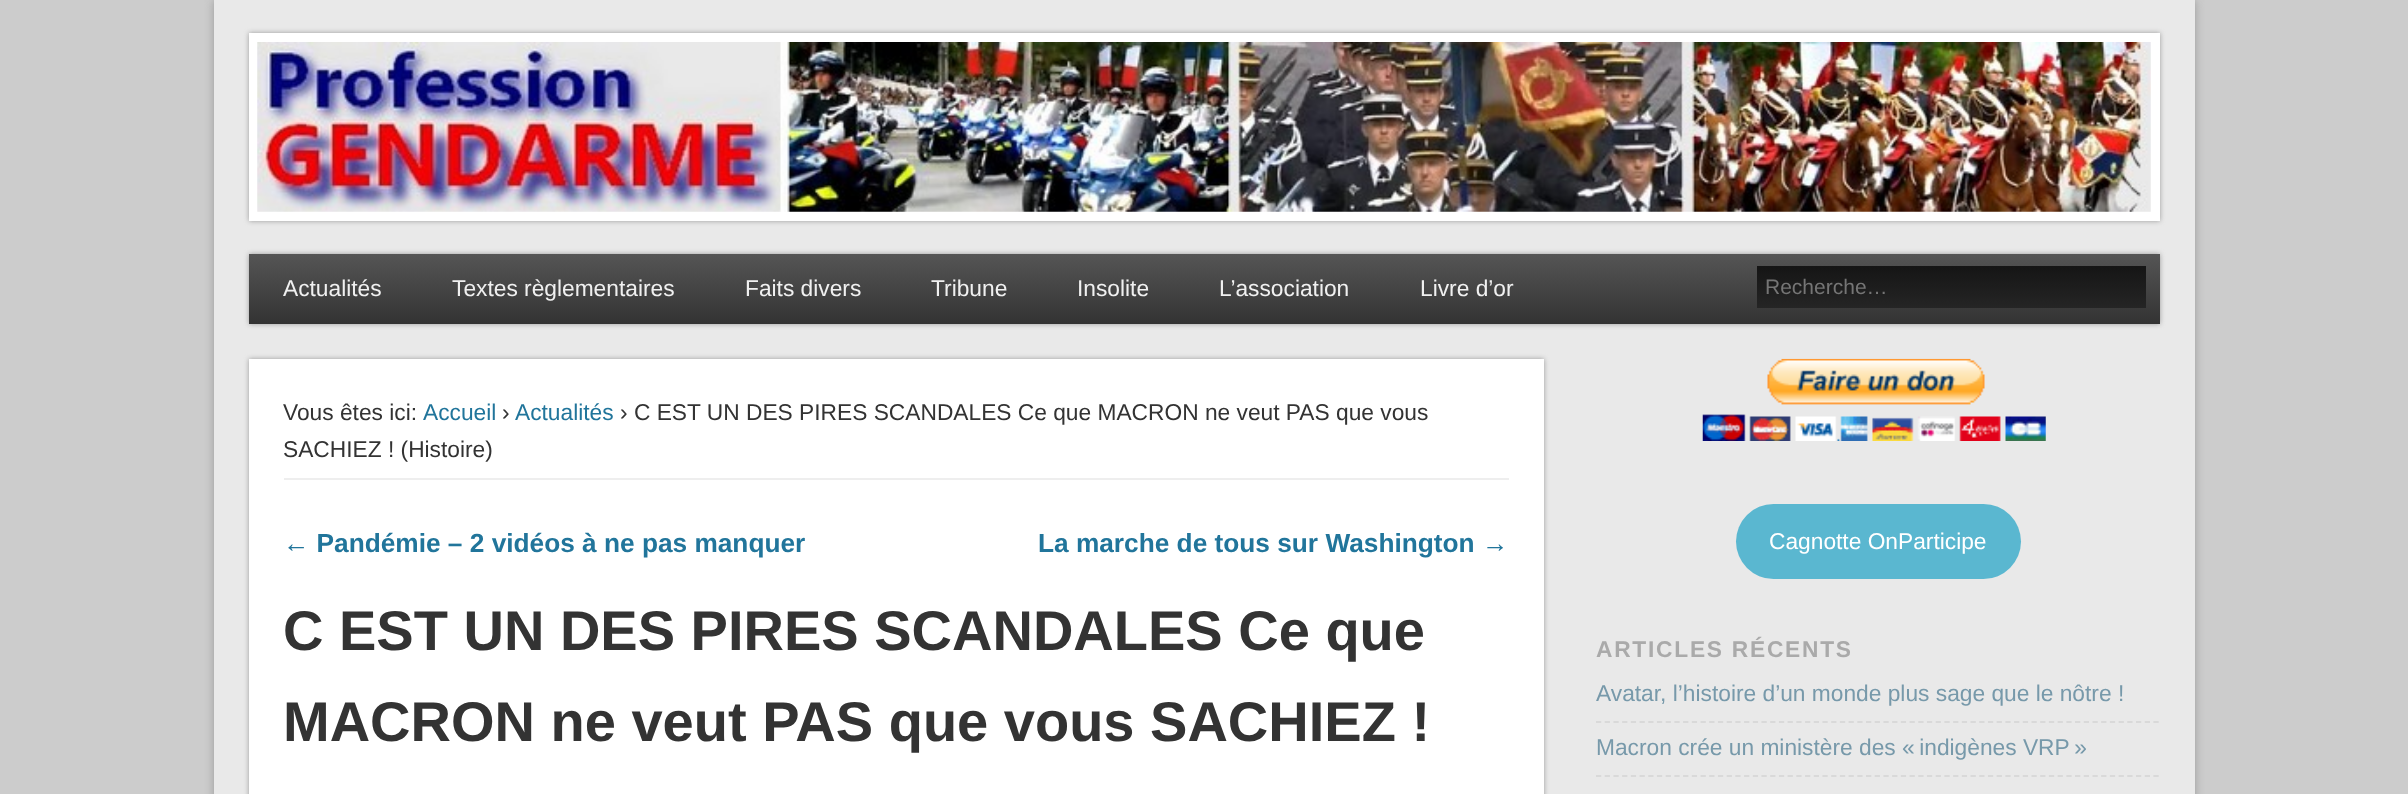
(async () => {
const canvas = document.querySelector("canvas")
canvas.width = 2408
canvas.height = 794
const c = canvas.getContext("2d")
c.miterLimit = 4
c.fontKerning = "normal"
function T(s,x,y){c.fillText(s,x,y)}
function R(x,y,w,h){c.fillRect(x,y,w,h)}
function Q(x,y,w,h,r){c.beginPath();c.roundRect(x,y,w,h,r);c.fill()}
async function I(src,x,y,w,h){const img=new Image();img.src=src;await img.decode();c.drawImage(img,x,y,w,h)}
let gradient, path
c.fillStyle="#ccc"
R(0,0,2408,794)
c.fillStyle="#999"
c.filter="blur(5px)"
c.beginPath()
c.rect(214,0,1981,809)
c.fill()
c.filter="none"
c.fillStyle="#e9e9e9"
R(214,0,1981,794)
c.fillStyle="#999"
c.filter="blur(2.5px)"
c.beginPath()
c.rect(249,33,1911,188)
c.fill()
c.filter="none"
c.fillStyle="#fff"
R(249,33,1911,188)
await I("1.png",257,42,1894,170)
c.fillStyle="#999"
c.filter="blur(2.5px)"
c.beginPath()
c.rect(249,254,1911,70)
c.fill()
c.filter="none"
gradient = c.createLinearGradient(1204,254,1204,394)
gradient.addColorStop(0,"#555")
gradient.addColorStop(.5,"#333")
gradient.addColorStop(.5,"#555")
gradient.addColorStop(1,"#333")
c.fillStyle = gradient
R(249,254,1911,70)
c.font="22.75px Liberation Sans"
c.fillStyle="#f0f0f0"
T("Actualités",283,296)
T("Textes règlementaires",452,296)
T("Faits divers",745,296)
T("Tribune",931,296)
T("Insolite",1077,296)
T("L’association",1219,296)
T("Livre d’or",1420,296)
gradient = c.createLinearGradient(1951,266,1951,308)
gradient.addColorStop(0,"#151515")
gradient.addColorStop(1,"#252525")
c.fillStyle = gradient
R(1757,266,389,42)
c.font="21px Liberation Sans"
c.fillStyle="#757575"
T("Recherche…",1765,294)
c.fillStyle="#999"
c.filter="blur(2.5px)"
c.beginPath()
c.rect(249,359,1295,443)
c.fill()
c.filter="none"
c.fillStyle="#fff"
R(249,359,1295,435)
c.fillStyle="#eee"
R(284,478,1225,2)
c.font="22.75px Liberation Sans"
c.fillStyle="#333"
T("Vous êtes ici:",283,420)
c.fillStyle="#21759b"
T("Accueil",423,420)
c.fillStyle="#333"
T("›",502,420)
c.fillStyle="#21759b"
T("Actualités",515,420)
c.fillStyle="#333"
T("› C EST UN DES PIRES SCANDALES Ce que MACRON ne veut PAS que vous",620,420)
T("SACHIEZ ! (Histoire)",283,457)
c.font="bold 26.25px Liberation Sans"
c.fillStyle="#21759b"
T("← Pandémie – 2 vidéos à ne pas manquer",283,552)
T("La marche de tous sur Washington →",1038,552)
c.font="bold 56px Liberation Sans"
c.fillStyle="#333"
T("C EST UN DES PIRES SCANDALES Ce que",283,650)
T("MACRON ne veut PAS que vous SACHIEZ !",283,741)
await I("2.png",1702,358,344,83)
c.fillStyle="#5ab7d0"
Q(1736,504,285,75,37.5)
c.font="22.75px Liberation Sans"
c.fillStyle="#fff"
T("Cagnotte OnParticipe",1769,549)
c.letterSpacing="1.75px"
c.font="bold 22.75px Liberation Sans"
c.fillStyle="#aaa"
T("ARTICLES RÉCENTS",1596,657)
path = new Path2D("M1596 722h563.5")
c.strokeStyle="#d9d9d9"
c.lineWidth=1.8
c.setLineDash([5.25,3.46])
c.stroke(path)
c.letterSpacing="0px"
c.font="22.75px Liberation Sans"
c.fillStyle="#79a"
T("Avatar, l’histoire d’un monde plus sage que le nôtre !",1596,701)
path = new Path2D("M1596 776h563.5")
c.stroke(path)
T("Macron crée un ministère des « indigènes VRP »",1596,755)
})()
